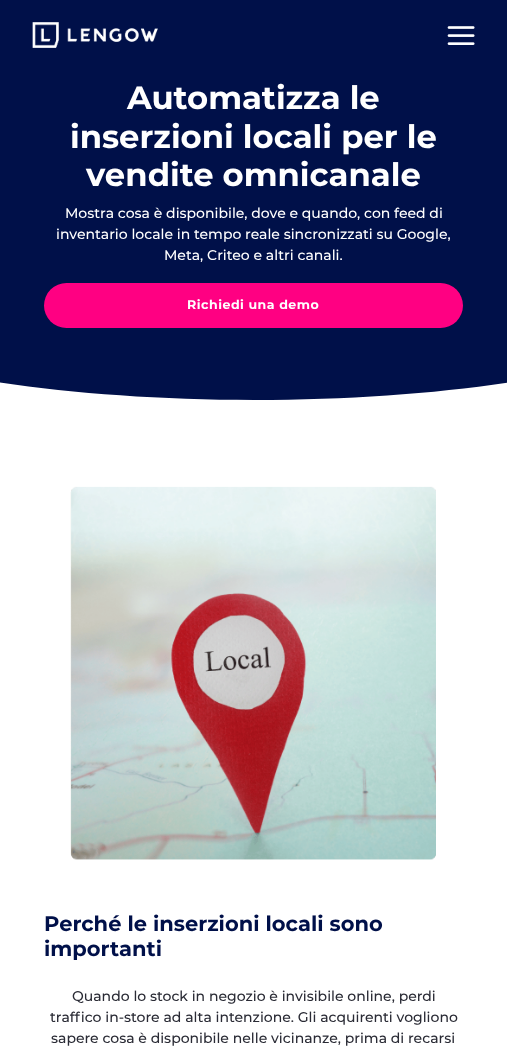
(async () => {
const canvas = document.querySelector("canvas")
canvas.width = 507
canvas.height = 1046
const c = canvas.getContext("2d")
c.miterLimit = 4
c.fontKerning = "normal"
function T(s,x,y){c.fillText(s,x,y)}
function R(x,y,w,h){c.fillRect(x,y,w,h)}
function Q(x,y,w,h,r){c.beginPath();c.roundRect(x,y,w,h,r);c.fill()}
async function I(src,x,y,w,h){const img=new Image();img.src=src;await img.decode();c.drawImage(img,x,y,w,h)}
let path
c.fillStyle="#fff"
R(0,0,507,1046)
c.fillStyle="#001049"
path = new Path2D("M-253 0h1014v270c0 72-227 130-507 130c-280 0-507-58-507-130z")
c.fill(path)
await I("1.png",32,22,126,26)
await I("2.png",447,26,28,19)
c.font="bold 32.25px Montserrat"
c.fillStyle="#fff"
T("Automatizza le",127,109)
T("inserzioni locali per le",70,148)
T("vendite omnicanale",86,186)
c.font="500 14px Montserrat"
T("Mostra cosa è disponibile, dove e quando, con feed di",65,218)
T("inventario locale in tempo reale sincronizzati su Google,",56,239)
T("Meta, Criteo e altri canali.",164,260)
c.fillStyle="#ff0082"
Q(44,283,419,45,22.5)
c.letterSpacing="0.5px"
c.font="bold 12.6px Montserrat"
c.fillStyle="#fff"
T("Richiedi una demo",187,309)
await I("3.png",70,486,366,374)
c.letterSpacing="0px"
c.font="bold 21px Montserrat"
c.fillStyle="#001049"
T("Perché le inserzioni locali sono",44,931)
T("importanti",44,956)
c.font="500 14px Montserrat"
c.fillStyle="#2a2b35"
T("Quando lo stock in negozio è invisibile online, perdi",72,1001)
T("traffico in-store ad alta intenzione. Gli acquirenti vogliono",50,1022)
T("sapere cosa è disponibile nelle vicinanze, prima di recarsi",51,1043)
})()
